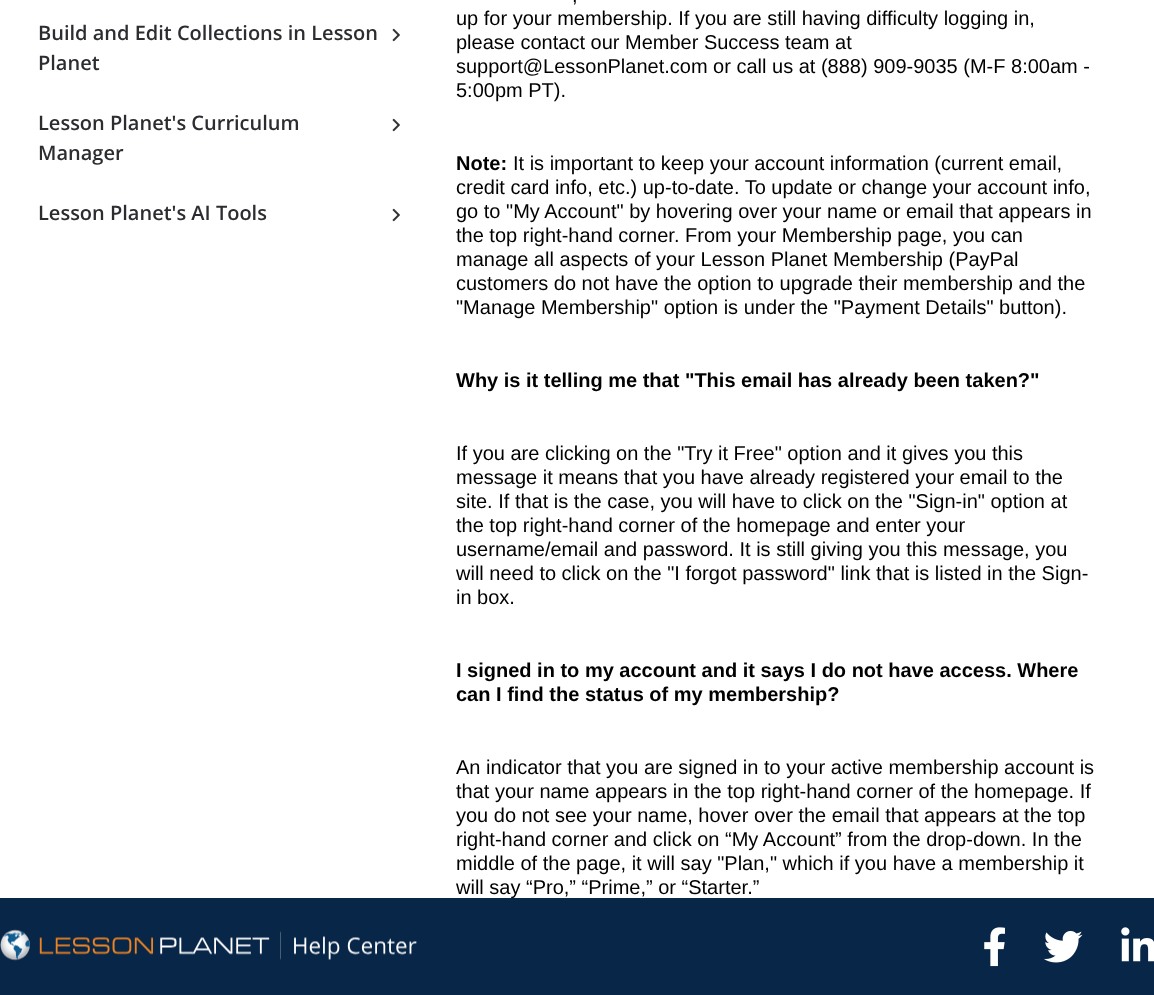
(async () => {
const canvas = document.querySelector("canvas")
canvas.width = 1154
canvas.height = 995
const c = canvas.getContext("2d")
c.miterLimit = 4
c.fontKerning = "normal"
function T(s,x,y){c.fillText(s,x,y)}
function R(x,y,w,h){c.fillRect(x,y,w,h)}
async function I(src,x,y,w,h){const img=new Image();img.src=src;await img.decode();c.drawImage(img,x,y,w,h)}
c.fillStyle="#fff"
R(0,0,1154,995)
c.font="600 20px Open Sans"
c.fillStyle="#2c2d30"
T("Build and Edit Collections in Lesson",38,40)
T("Planet",38,70)
await I("1.png",392,28,8,14)
T("Lesson Planet's Curriculum",38,130)
T("Manager",38,160)
await I("1.png",392,118,8,14)
T("Lesson Planet's AI Tools",38,220)
await I("1.png",392,208,8,14)
c.font="20px Liberation Sans"
c.fillStyle="#000"
T(",",572,2)
T("up for your membership. If you are still having difficulty logging in,",456,25)
T("please contact our Member Success team at",456,49)
T("support@LessonPlanet.com or call us at (888) 909-9035 (M-F 8:00am -",456,73)
T("5:00pm PT).",456,97)
c.font="bold 20px Liberation Sans"
T("Note:",456,170)
c.font="20px Liberation Sans"
T("It is important to keep your account information (current email,",513,170)
T("credit card info, etc.) up-to-date. To update or change your account info,",456,194)
T("go to \"My Account\" by hovering over your name or email that appears in",456,218)
T("the top right-hand corner. From your Membership page, you can",456,242)
T("manage all aspects of your Lesson Planet Membership (PayPal",456,266)
T("customers do not have the option to upgrade their membership and the",456,290)
T("\"Manage Membership\" option is under the \"Payment Details\" button).",456,314)
c.font="bold 20px Liberation Sans"
T("Why is it telling me that \"This email has already been taken?\"",456,387)
c.font="20px Liberation Sans"
T("If you are clicking on the \"Try it Free\" option and it gives you this",456,460)
T("message it means that you have already registered your email to the",456,484)
T("site. If that is the case, you will have to click on the \"Sign-in\" option at",456,508)
T("the top right-hand corner of the homepage and enter your",456,532)
T("username/email and password. It is still giving you this message, you",456,556)
T("will need to click on the \"I forgot password\" link that is listed in the Sign-",456,580)
T("in box.",456,604)
c.font="bold 20px Liberation Sans"
T("I signed in to my account and it says I do not have access. Where",456,677)
T("can I find the status of my membership?",456,701)
c.font="20px Liberation Sans"
T("An indicator that you are signed in to your active membership account is",456,774)
T("that your name appears in the top right-hand corner of the homepage. If",456,798)
T("you do not see your name, hover over the email that appears at the top",456,822)
T("right-hand corner and click on “My Account” from the drop-down. In the",456,846)
T("middle of the page, it will say \"Plan,\" which if you have a membership it",456,870)
T("will say “Pro,” “Prime,” or “Starter.”",456,894)
c.fillStyle="#082648"
R(0,898,1154,97)
await I("2.png",0,929,417,32)
await I("3.png",984,927,21,40)
await I("4.png",1044,931,39,32)
await I("5.png",1121,927,33,35)
})()
